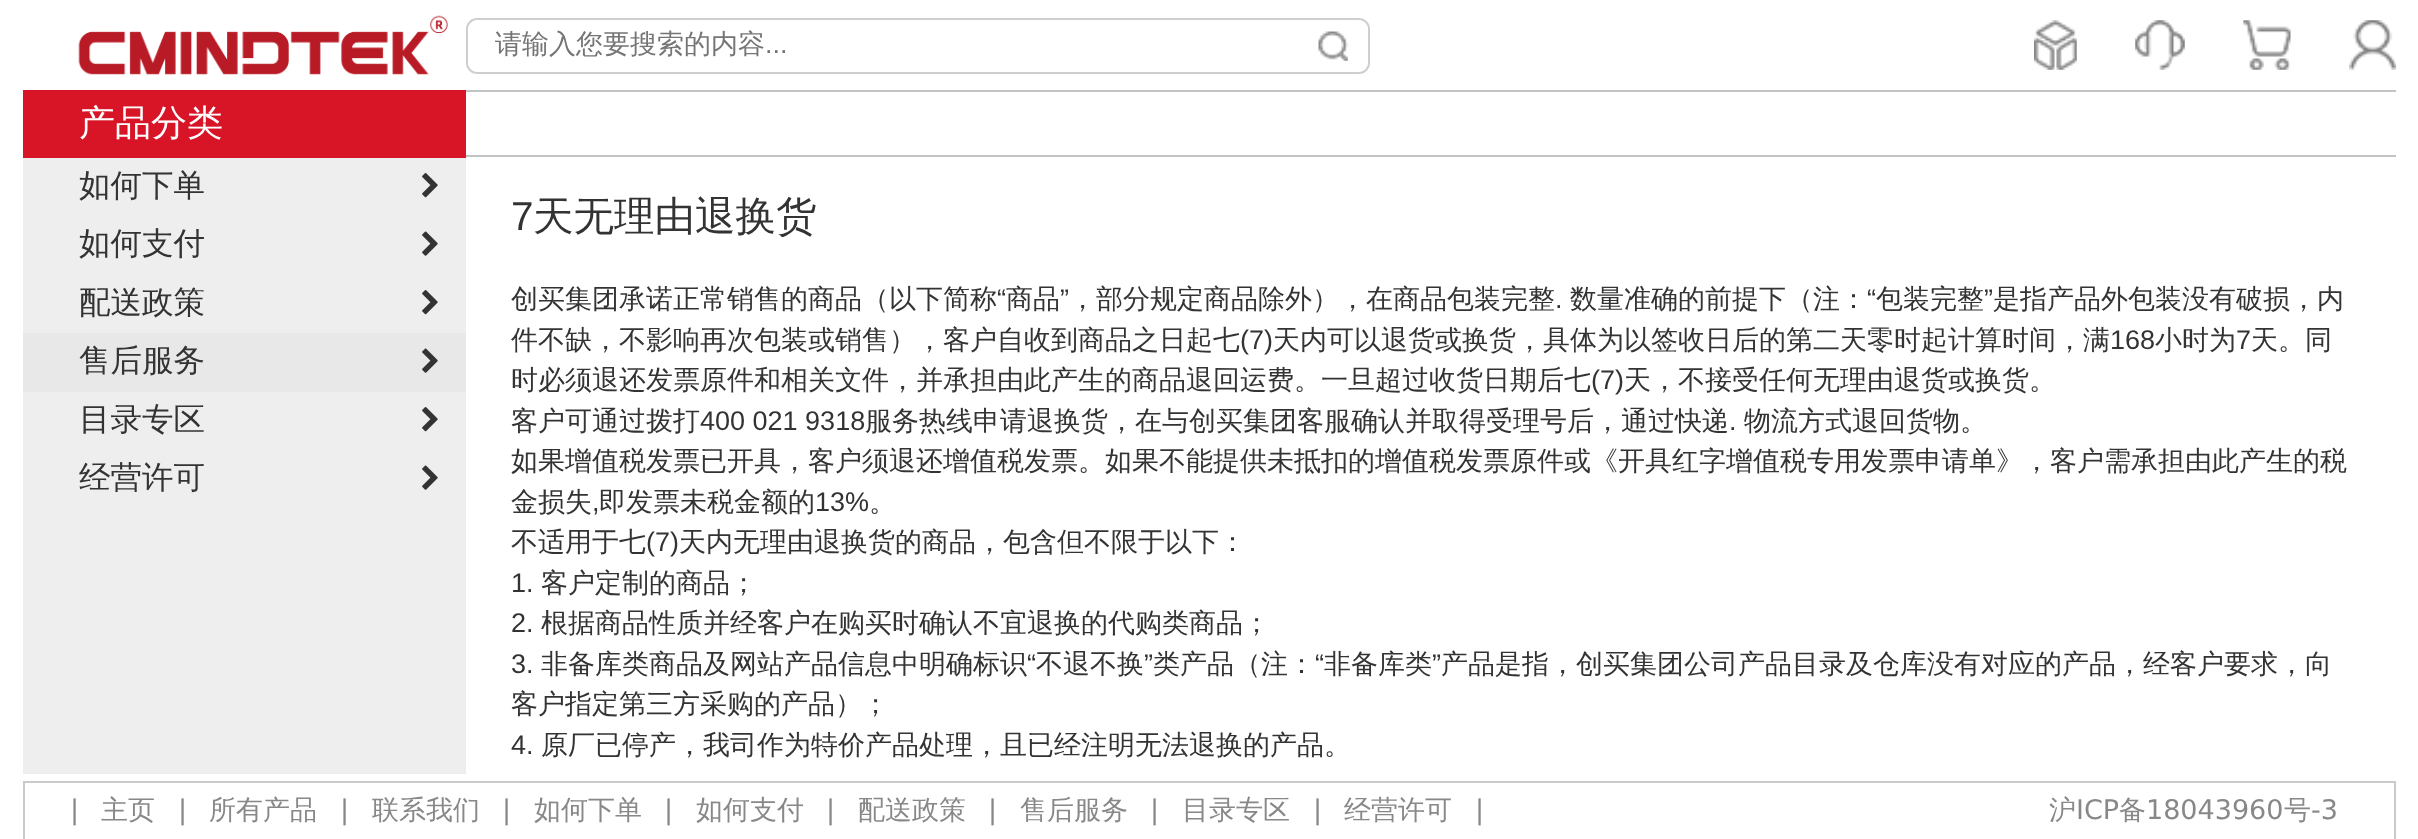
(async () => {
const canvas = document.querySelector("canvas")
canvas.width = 2418
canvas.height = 839
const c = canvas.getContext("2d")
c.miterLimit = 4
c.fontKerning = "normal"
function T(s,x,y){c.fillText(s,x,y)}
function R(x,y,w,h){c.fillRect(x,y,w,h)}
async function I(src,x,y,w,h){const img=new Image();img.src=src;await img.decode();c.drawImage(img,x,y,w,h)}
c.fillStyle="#fff"
R(0,0,2418,839)
await I("1.png",78,15,370,60)
c.beginPath()
c.roundRect(467,19,902,54,10)
c.strokeStyle="#cfcfcf"
c.lineWidth=2
c.stroke()
c.beginPath()
c.roundRect(468,20,830,52,[11,0,0,11])
c.fill()
c.font="500 27px WenQuanYi Zen Hei"
c.fillStyle="#757575"
T("请输入您要搜索的内容",495,53)
c.font="27px Liberation Sans"
T("...",765,53)
c.fillStyle="#fff"
c.beginPath()
c.roundRect(1298,20,70,52,[0,11,11,0])
c.fill()
await I("2.png",1318,31,30,30)
await I("3.png",2034,20,43,50)
await I("4.png",2135,20,50,50)
await I("5.png",2243,20,48,50)
await I("6.png",2349,20,48,50)
c.fillStyle="#d81527"
R(23,90,443,68)
c.font="500 36px WenQuanYi Zen Hei"
c.fillStyle="#fff"
T("产品分类",79,135)
c.fillStyle="#c3c3c3"
R(466,90,1930,2)
R(466,155,1930,2)
c.fillStyle="#eee"
R(23,158,443,616)
c.font="500 31.5px WenQuanYi Zen Hei"
c.fillStyle="#333"
T("如何下单",79,196)
await I("7.png",422,173,16,25)
T("如何支付",79,254)
await I("8.png",422,231,16,25)
T("配送政策",79,313)
await I("7.png",422,290,16,25)
c.fillStyle="#e8e8e8"
R(23,333,443,59)
c.fillStyle="#333"
T("售后服务",79,371)
await I("9.png",422,348,16,25)
T("目录专区",79,430)
await I("7.png",422,407,16,25)
T("经营许可",79,488)
await I("8.png",422,465,16,25)
c.font="40.5px Liberation Sans"
T("7",511,230)
c.font="500 40.5px WenQuanYi Zen Hei"
T("天无理由退换货",533,230)
c.font="500 27px WenQuanYi Zen Hei"
T("创买集团承诺正常销售的商品（以下简称",511,308)
c.font="27px Liberation Sans"
T("“",997,308)
c.font="500 27px WenQuanYi Zen Hei"
T("商品",1006,308)
c.font="27px Liberation Sans"
T("”",1060,308)
c.font="500 27px WenQuanYi Zen Hei"
T("，部分规定商品除外），在商品包装完整",1069,308)
T("数量准确的前提下（注：",1570,308)
c.font="27px Liberation Sans"
T("“",1867,308)
c.font="500 27px WenQuanYi Zen Hei"
T("包装完整",1876,308)
c.font="27px Liberation Sans"
T("”",1984,308)
c.font="500 27px WenQuanYi Zen Hei"
T("是指产品外包装没有破损，内",1993,308)
c.font="27px Liberation Sans"
T(".",1555,308)
c.font="500 27px WenQuanYi Zen Hei"
T("件不缺，不影响再次包装或销售），客户自收到商品之日起七",511,349)
c.font="27px Liberation Sans"
T("(7)",1240,349)
c.font="500 27px WenQuanYi Zen Hei"
T("天内可以退货或换货，具体为以签收日后的第二天零时起计算时间，满",1273,349)
c.font="27px Liberation Sans"
T("168",2110,349)
c.font="500 27px WenQuanYi Zen Hei"
T("小时为",2155,349)
c.font="27px Liberation Sans"
T("7",2236,349)
c.font="500 27px WenQuanYi Zen Hei"
T("天。同",2251,349)
T("时必须退还发票原件和相关文件，并承担由此产生的商品退回运费。一旦超过收货日期后七",511,389)
c.font="27px Liberation Sans"
T("(7)",1591,389)
c.font="500 27px WenQuanYi Zen Hei"
T("天，不接受任何无理由退货或换货。",1624,389)
T("客户可通过拨打",511,430)
c.font="27px Liberation Sans"
T("400 021 9318",700,430)
c.font="500 27px WenQuanYi Zen Hei"
T("服务热线申请退换货，在与创买集团客服确认并取得受理号后，通过快递",865,430)
c.font="27px Liberation Sans"
T(".",1729,430)
c.font="500 27px WenQuanYi Zen Hei"
T("物流方式退回货物。",1744,430)
T("如果增值税发票已开具，客户须退还增值税发票。如果不能提供未抵扣的增值税发票原件或《开具红字增值税专用发票申请单》，客户需承担由此产生的税",511,470)
T("金损失",511,511)
c.font="27px Liberation Sans"
T(",",592,511)
c.font="500 27px WenQuanYi Zen Hei"
T("即发票未税金额的",599,511)
c.font="27px Liberation Sans"
T("13%",815,511)
c.font="500 27px WenQuanYi Zen Hei"
T("。",869,511)
T("不适用于七",511,551)
c.font="27px Liberation Sans"
T("(7)",646,551)
c.font="500 27px WenQuanYi Zen Hei"
T("天内无理由退换货的商品，包含但不限于以下：",679,551)
c.font="27px Liberation Sans"
T("1.",511,592)
c.font="500 27px WenQuanYi Zen Hei"
T("客户定制的商品；",541,592)
c.font="27px Liberation Sans"
T("2.",511,632)
c.font="500 27px WenQuanYi Zen Hei"
T("根据商品性质并经客户在购买时确认不宜退换的代购类商品；",541,632)
c.font="27px Liberation Sans"
T("3.",511,673)
c.font="500 27px WenQuanYi Zen Hei"
T("非备库类商品及网站产品信息中明确标识",541,673)
c.font="27px Liberation Sans"
T("“",1027,673)
c.font="500 27px WenQuanYi Zen Hei"
T("不退不换",1036,673)
c.font="27px Liberation Sans"
T("”",1144,673)
c.font="500 27px WenQuanYi Zen Hei"
T("类产品（注：",1153,673)
c.font="27px Liberation Sans"
T("“",1315,673)
c.font="500 27px WenQuanYi Zen Hei"
T("非备库类",1324,673)
c.font="27px Liberation Sans"
T("”",1432,673)
c.font="500 27px WenQuanYi Zen Hei"
T("产品是指，创买集团公司产品目录及仓库没有对应的产品，经客户要求，向",1441,673)
T("客户指定第三方采购的产品）；",511,713)
c.font="27px Liberation Sans"
T("4.",511,754)
c.font="500 27px WenQuanYi Zen Hei"
T("原厂已停产，我司作为特价产品处理，且已经注明无法退换的产品。",541,754)
c.fillStyle="#cacaca"
R(23,781,2373,2)
R(2394,781,2,58)
R(23,781,2,58)
c.font="27px DejaVu Sans"
c.fillStyle="#888"
T("|",70,819)
c.font="500 27px WenQuanYi Zen Hei"
T("主页",101,819)
c.font="27px DejaVu Sans"
T("|",178,819)
c.font="500 27px WenQuanYi Zen Hei"
T("所有产品",209,819)
c.font="27px DejaVu Sans"
T("|",340,819)
c.font="500 27px WenQuanYi Zen Hei"
T("联系我们",372,819)
c.font="27px DejaVu Sans"
T("|",502,819)
c.font="500 27px WenQuanYi Zen Hei"
T("如何下单",534,819)
c.font="27px DejaVu Sans"
T("|",664,819)
c.font="500 27px WenQuanYi Zen Hei"
T("如何支付",696,819)
c.font="27px DejaVu Sans"
T("|",826,819)
c.font="500 27px WenQuanYi Zen Hei"
T("配送政策",858,819)
c.font="27px DejaVu Sans"
T("|",988,819)
c.font="500 27px WenQuanYi Zen Hei"
T("售后服务",1020,819)
c.font="27px DejaVu Sans"
T("|",1150,819)
c.font="500 27px WenQuanYi Zen Hei"
T("目录专区",1182,819)
c.font="27px DejaVu Sans"
T("|",1313,819)
c.font="500 27px WenQuanYi Zen Hei"
T("经营许可",1344,819)
c.font="27px DejaVu Sans"
T("|",1475,819)
c.font="500 27px WenQuanYi Zen Hei"
T("沪",2049,819)
c.font="27px DejaVu Sans"
T("ICP",2076,819)
c.font="500 27px WenQuanYi Zen Hei"
T("备",2119,819)
c.font="27px DejaVu Sans"
T("18043960",2146,819)
c.font="500 27px WenQuanYi Zen Hei"
T("号",2284,819)
c.font="27px DejaVu Sans"
T("-3",2311,819)
})()
